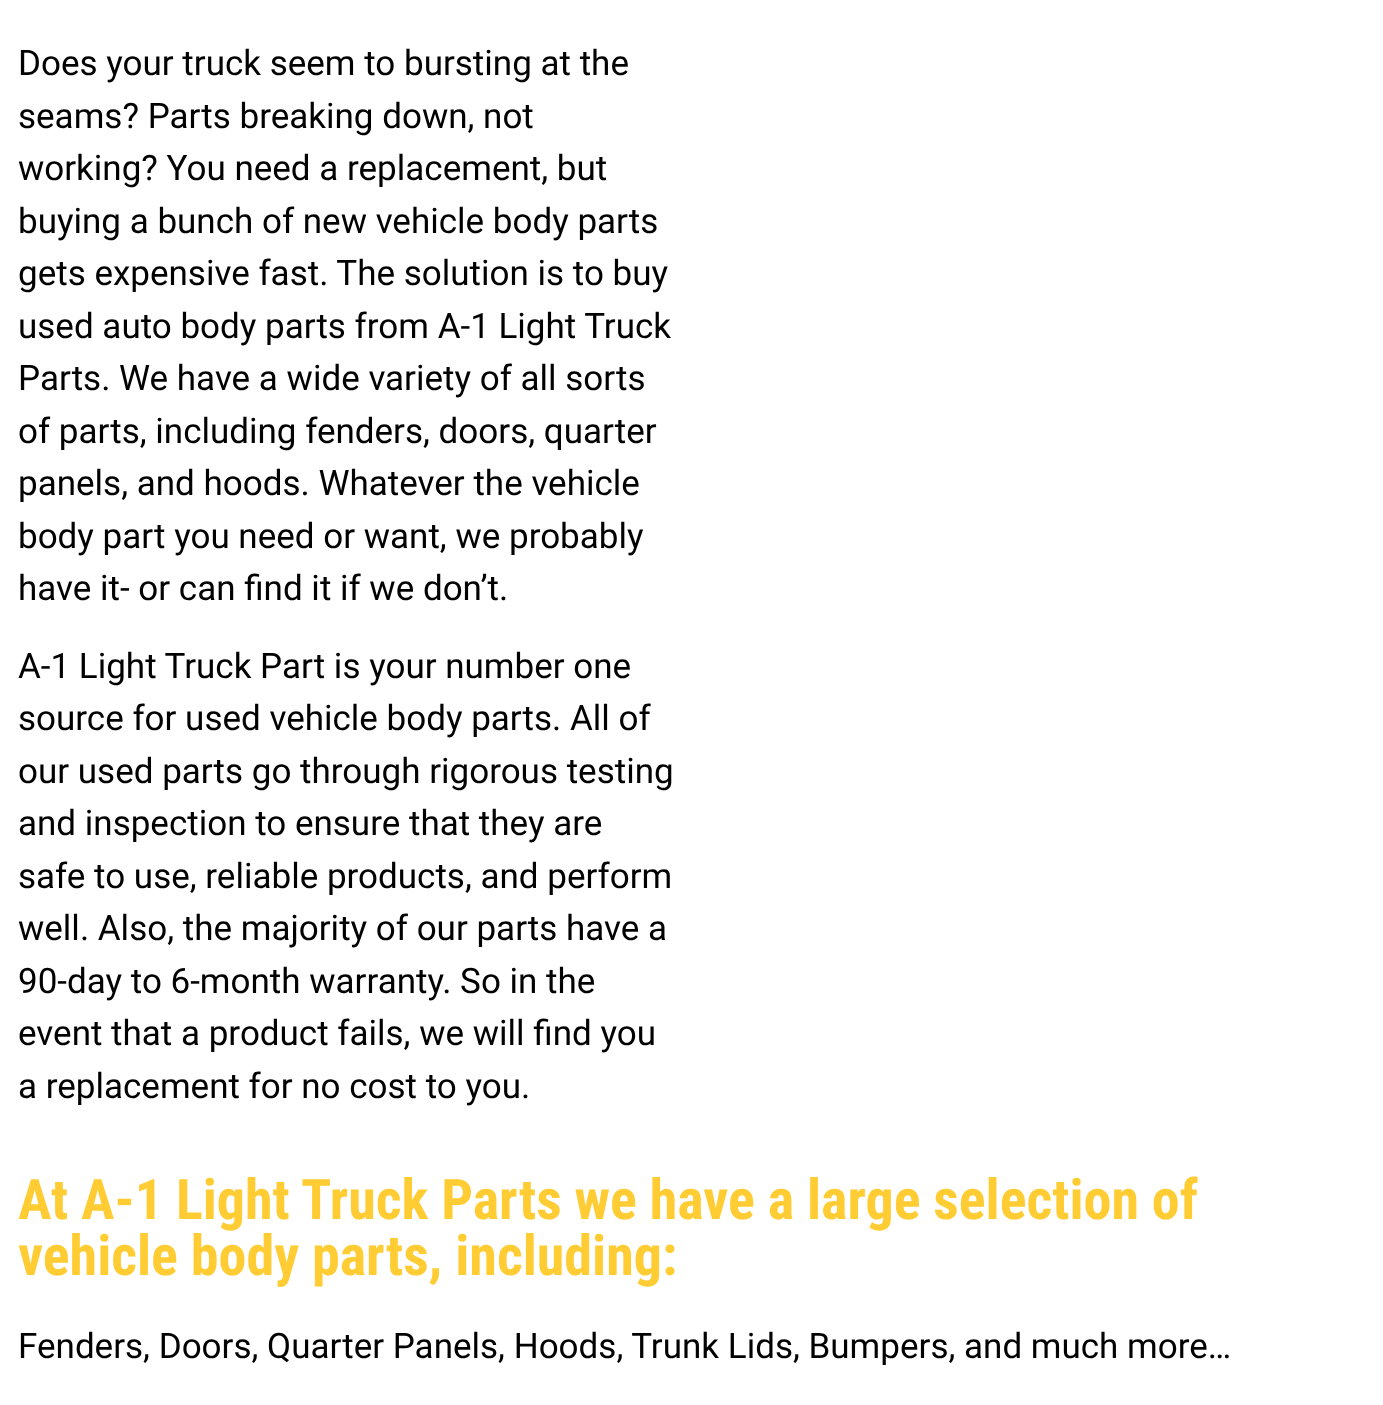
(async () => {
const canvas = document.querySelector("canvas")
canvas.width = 1383
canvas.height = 1405
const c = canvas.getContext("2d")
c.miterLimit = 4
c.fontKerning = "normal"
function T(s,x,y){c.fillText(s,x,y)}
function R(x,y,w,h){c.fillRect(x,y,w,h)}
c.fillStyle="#fff"
R(0,0,1383,1405)
c.font="35px Roboto"
c.fillStyle="#000"
T("Does your truck seem to bursting at the",18,75)
T("seams? Parts breaking down, not",18,128)
T("working? You need a replacement, but",18,180)
T("buying a bunch of new vehicle body parts",18,233)
T("gets expensive fast. The solution is to buy",18,285)
T("used auto body parts from A-1 Light Truck",18,338)
T("Parts. We have a wide variety of all sorts",18,390)
T("of parts, including fenders, doors, quarter",18,443)
T("panels, and hoods. Whatever the vehicle",18,495)
T("body part you need or want, we probably",18,548)
T("have it- or can find it if we don’t.",18,600)
T("A-1 Light Truck Part is your number one",18,678)
T("source for used vehicle body parts. All of",18,730)
T("our used parts go through rigorous testing",18,783)
T("and inspection to ensure that they are",18,835)
T("safe to use, reliable products, and perform",18,888)
T("well. Also, the majority of our parts have a",18,940)
T("90-day to 6-month warranty. So in the",18,993)
T("event that a product fails, we will find you",18,1045)
T("a replacement for no cost to you.",18,1098)
c.font="bold 56px Roboto Condensed"
c.fillStyle="#fc3"
T("At A-1 Light Truck Parts we have a large selection of",18,1219)
T("vehicle body parts, including:",18,1275)
c.font="35px Roboto"
c.fillStyle="#000"
T("Fenders, Doors, Quarter Panels, Hoods, Trunk Lids, Bumpers, and much more…",18,1358)
})()
